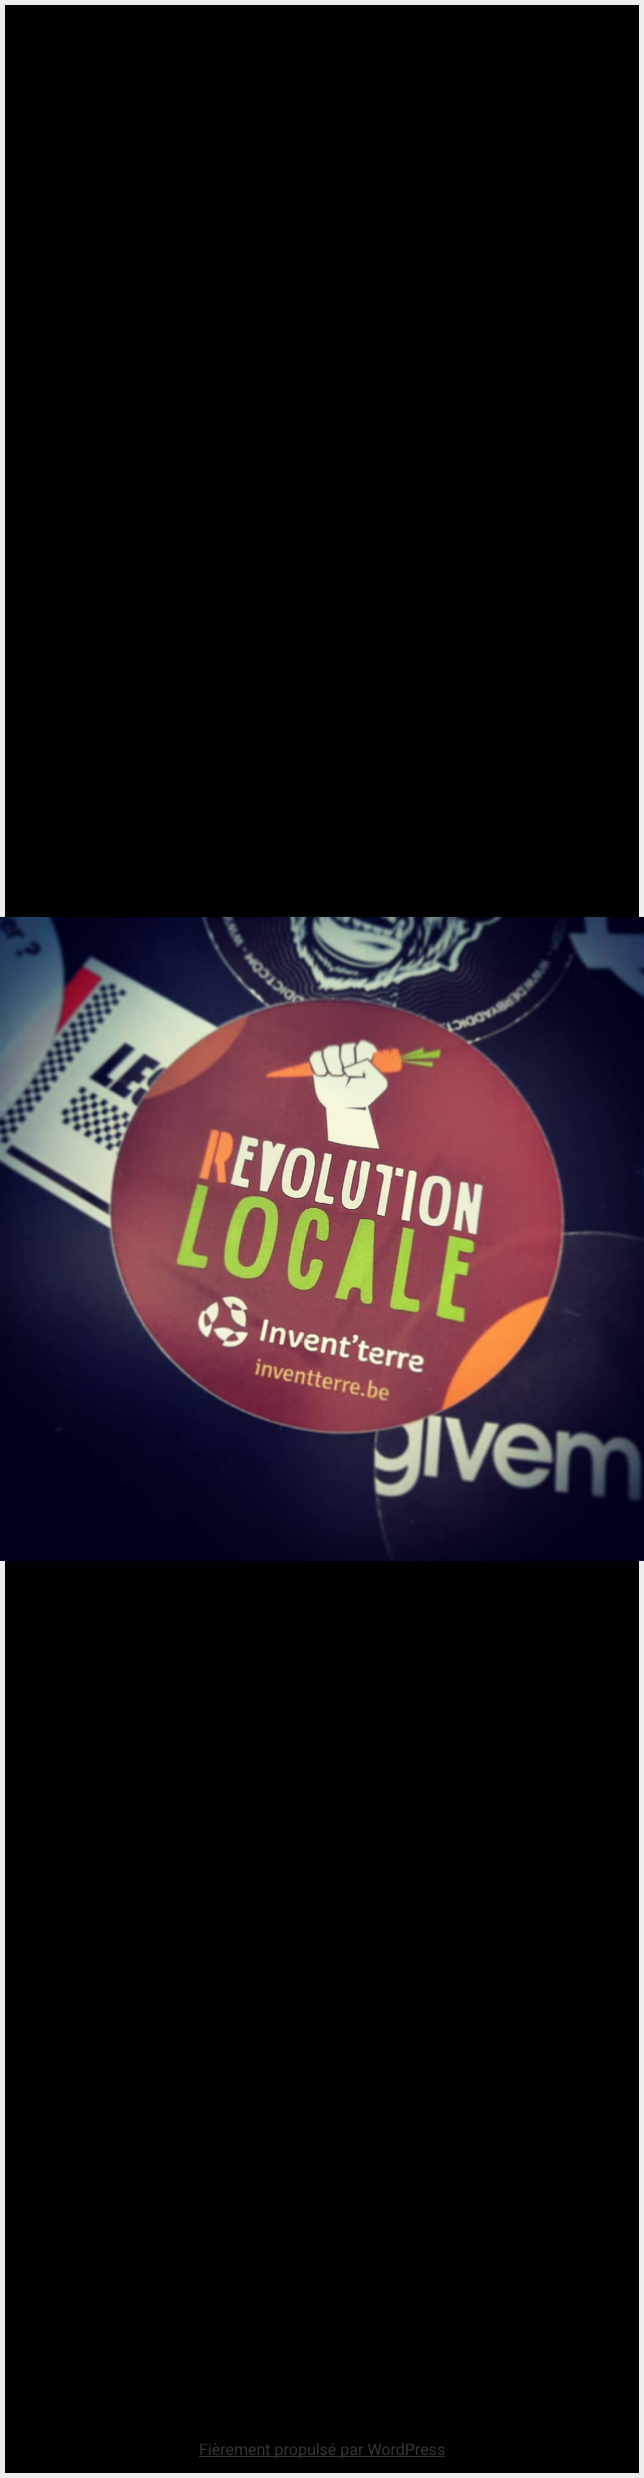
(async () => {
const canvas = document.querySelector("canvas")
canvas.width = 644
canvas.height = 2478
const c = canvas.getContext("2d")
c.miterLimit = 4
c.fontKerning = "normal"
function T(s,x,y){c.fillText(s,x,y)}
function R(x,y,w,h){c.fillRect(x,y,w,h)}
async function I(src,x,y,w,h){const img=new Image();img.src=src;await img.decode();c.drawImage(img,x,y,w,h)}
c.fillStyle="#eee"
R(0,0,644,2478)
c.fillStyle="#000"
R(5,5,634,2468)
await I("1.png",0,916,644,645)
c.fillStyle="#343434"
R(199,2456,246,1)
c.font="16px Roboto"
T("Fièrement propulsé par WordPress",199,2455)
})()
